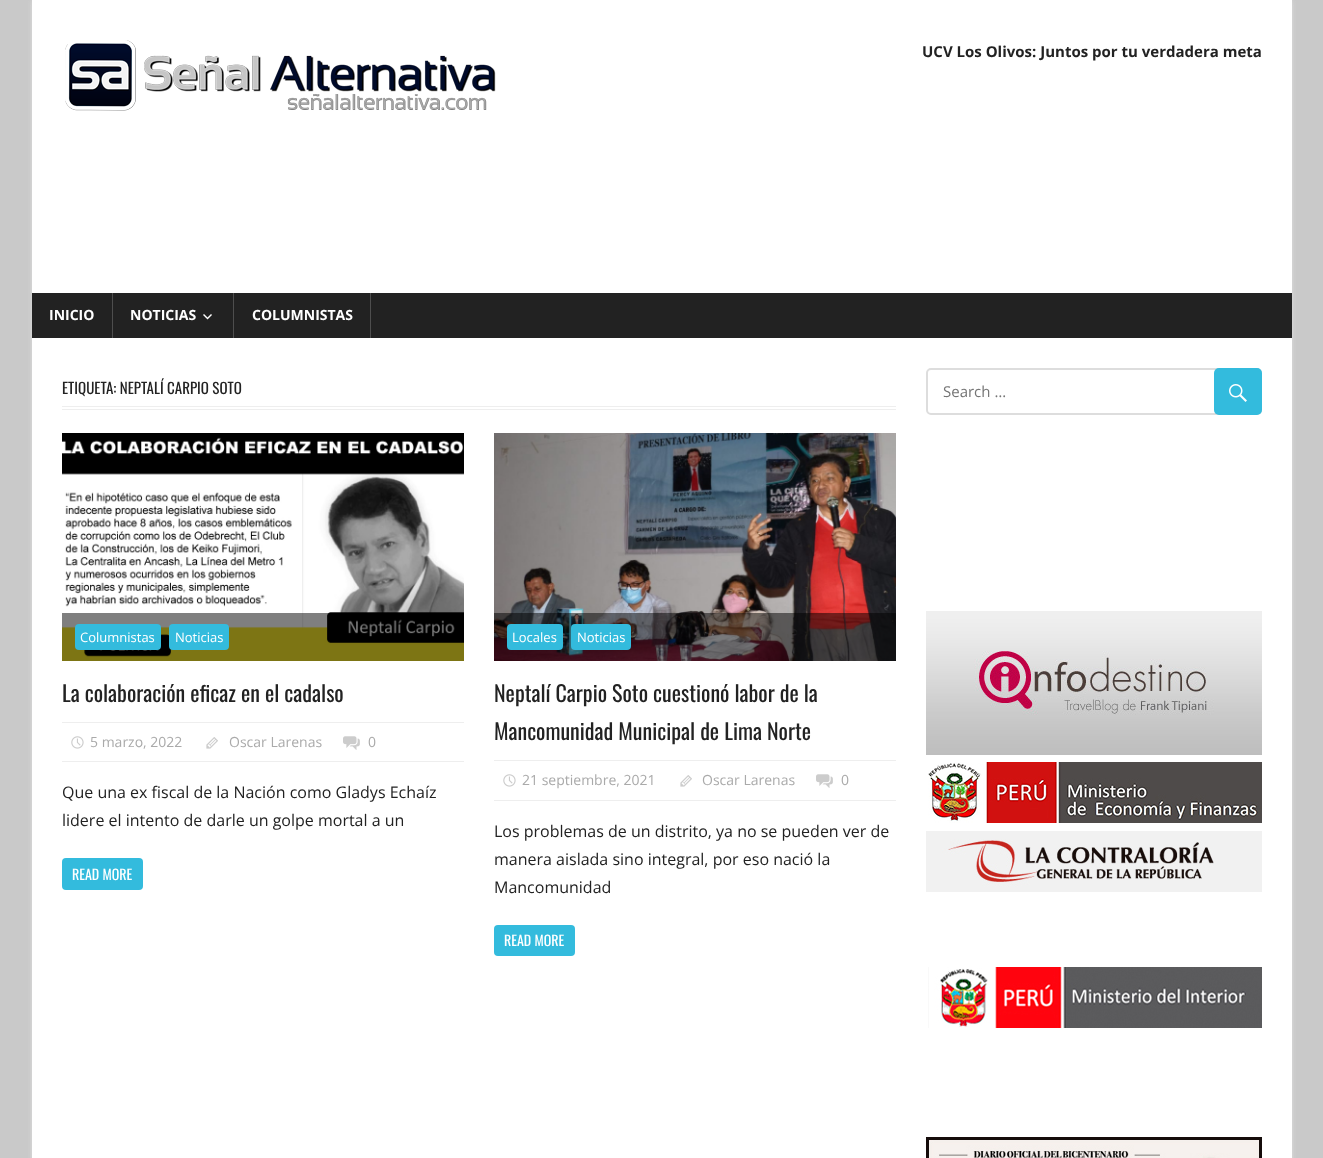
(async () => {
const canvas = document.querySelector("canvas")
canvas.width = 1323
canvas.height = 1158
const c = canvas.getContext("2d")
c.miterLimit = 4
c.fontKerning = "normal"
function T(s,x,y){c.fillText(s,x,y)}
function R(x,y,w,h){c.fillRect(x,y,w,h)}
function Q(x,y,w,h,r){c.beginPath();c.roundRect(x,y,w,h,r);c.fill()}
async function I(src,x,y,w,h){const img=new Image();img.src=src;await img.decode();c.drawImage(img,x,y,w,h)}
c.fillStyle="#c9c9c9"
R(0,0,1323,1158)
c.fillStyle="#ddd"
c.filter="blur(2.5px)"
c.beginPath()
c.rect(32,0,1260,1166)
c.fill()
c.filter="none"
c.fillStyle="#fff"
R(32,0,1260,1158)
await I("1.png",65,40,431,71)
c.font="bold 15px Open Sans"
c.fillStyle="#222"
T("UCV Los Olivos: Juntos por tu verdadera meta",922,57)
R(32,293,1260,45)
c.fillStyle="#4e4e4e"
R(112,293,1,45)
c.font="bold 14px Open Sans"
c.fillStyle="#fff"
T("INICIO",49,320)
c.fillStyle="#4e4e4e"
R(233,293,1,45)
c.fillStyle="#fff"
T("NOTICIAS",130,320)
await I("2.png",203,314,9,6)
c.fillStyle="#4e4e4e"
R(370,293,1,45)
c.fillStyle="#fff"
T("COLUMNISTAS",252,320)
c.fillStyle="#eee"
R(62,409,834,1)
R(62,406,834,1)
c.font="15px Oswald"
c.fillStyle="#222"
T("ETIQUETA: NEPTALÍ CARPIO SOTO",62,394)
await I("3.png",62,433,402,228)
c.fillStyle="#00000080"
R(62,613,402,48)
c.fillStyle="#3bd"
Q(75,624,86,26,4)
c.font="13px Open Sans"
c.fillStyle="#fff"
T("Columnistas",80,642)
c.fillStyle="#3bd"
Q(169,624,60,26,4)
c.fillStyle="#fff"
T("Noticias",175,642)
c.font="22px Oswald"
c.fillStyle="#222"
T("La colaboración eficaz en el cadalso",62,702)
c.fillStyle="#eee"
R(62,722,402,1)
R(62,761,402,1)
await I("4.png",71,736,13,13)
c.font="14px Open Sans"
c.fillStyle="#aaa"
T("5 marzo, 2022",90,747)
await I("5.png",206,737,12,12)
T("Oscar Larenas",229,747)
await I("6.png",343,736,17,14)
T("0",368,747)
c.font="16px Open Sans"
c.fillStyle="#222"
T("Que una ex fiscal de la Nación como Gladys Echaíz",62,798)
T("lidere el intento de darle un golpe mortal a un",62,826)
c.fillStyle="#3bd"
Q(62,858,81,32,4)
c.font="14px Oswald"
c.fillStyle="#fff"
T("READ MORE",72,880)
await I("7.png",494,433,402,228)
c.fillStyle="#00000080"
R(494,613,402,48)
c.fillStyle="#3bd"
Q(507,624,56,26,4)
c.font="13px Open Sans"
c.fillStyle="#fff"
T("Locales",512,642)
c.fillStyle="#3bd"
Q(571,624,60,26,4)
c.fillStyle="#fff"
T("Noticias",577,642)
c.font="22px Oswald"
c.fillStyle="#222"
T("Neptalí Carpio Soto cuestionó labor de la",494,702)
T("Mancomunidad Municipal de Lima Norte",494,740)
c.fillStyle="#eee"
R(494,760,402,1)
R(494,800,402,1)
await I("4.png",503,774,13,13)
c.font="14px Open Sans"
c.fillStyle="#aaa"
T("21 septiembre, 2021",522,785)
await I("5.png",680,775,12,12)
T("Oscar Larenas",702,785)
await I("6.png",816,774,17,14)
T("0",841,785)
c.font="16px Open Sans"
c.fillStyle="#222"
T("Los problemas de un distrito, ya no se pueden ver de",494,837)
T("manera aislada sino integral, por eso nació la",494,865)
T("Mancomunidad",494,893)
c.fillStyle="#3bd"
Q(494,925,81,31,4)
c.font="14px Oswald"
c.fillStyle="#fff"
T("READ MORE",504,946)
c.beginPath()
c.roundRect(927,369,334,45,4)
c.strokeStyle="#ddd"
c.lineWidth=2
c.stroke()
c.font="15px Open Sans"
c.fillStyle="#757575"
T("Search …",943,397)
c.fillStyle="#3bd"
Q(1214,368,48,47,5)
await I("8.png",1229,384,18,18)
await I("9.png",926,611,336,144)
await I("10.png",928,762,334,61)
await I("11.png",926,831,336,61)
await I("12.png",928,967,334,61)
await I("13.png",926,1137,336,21)
})()
